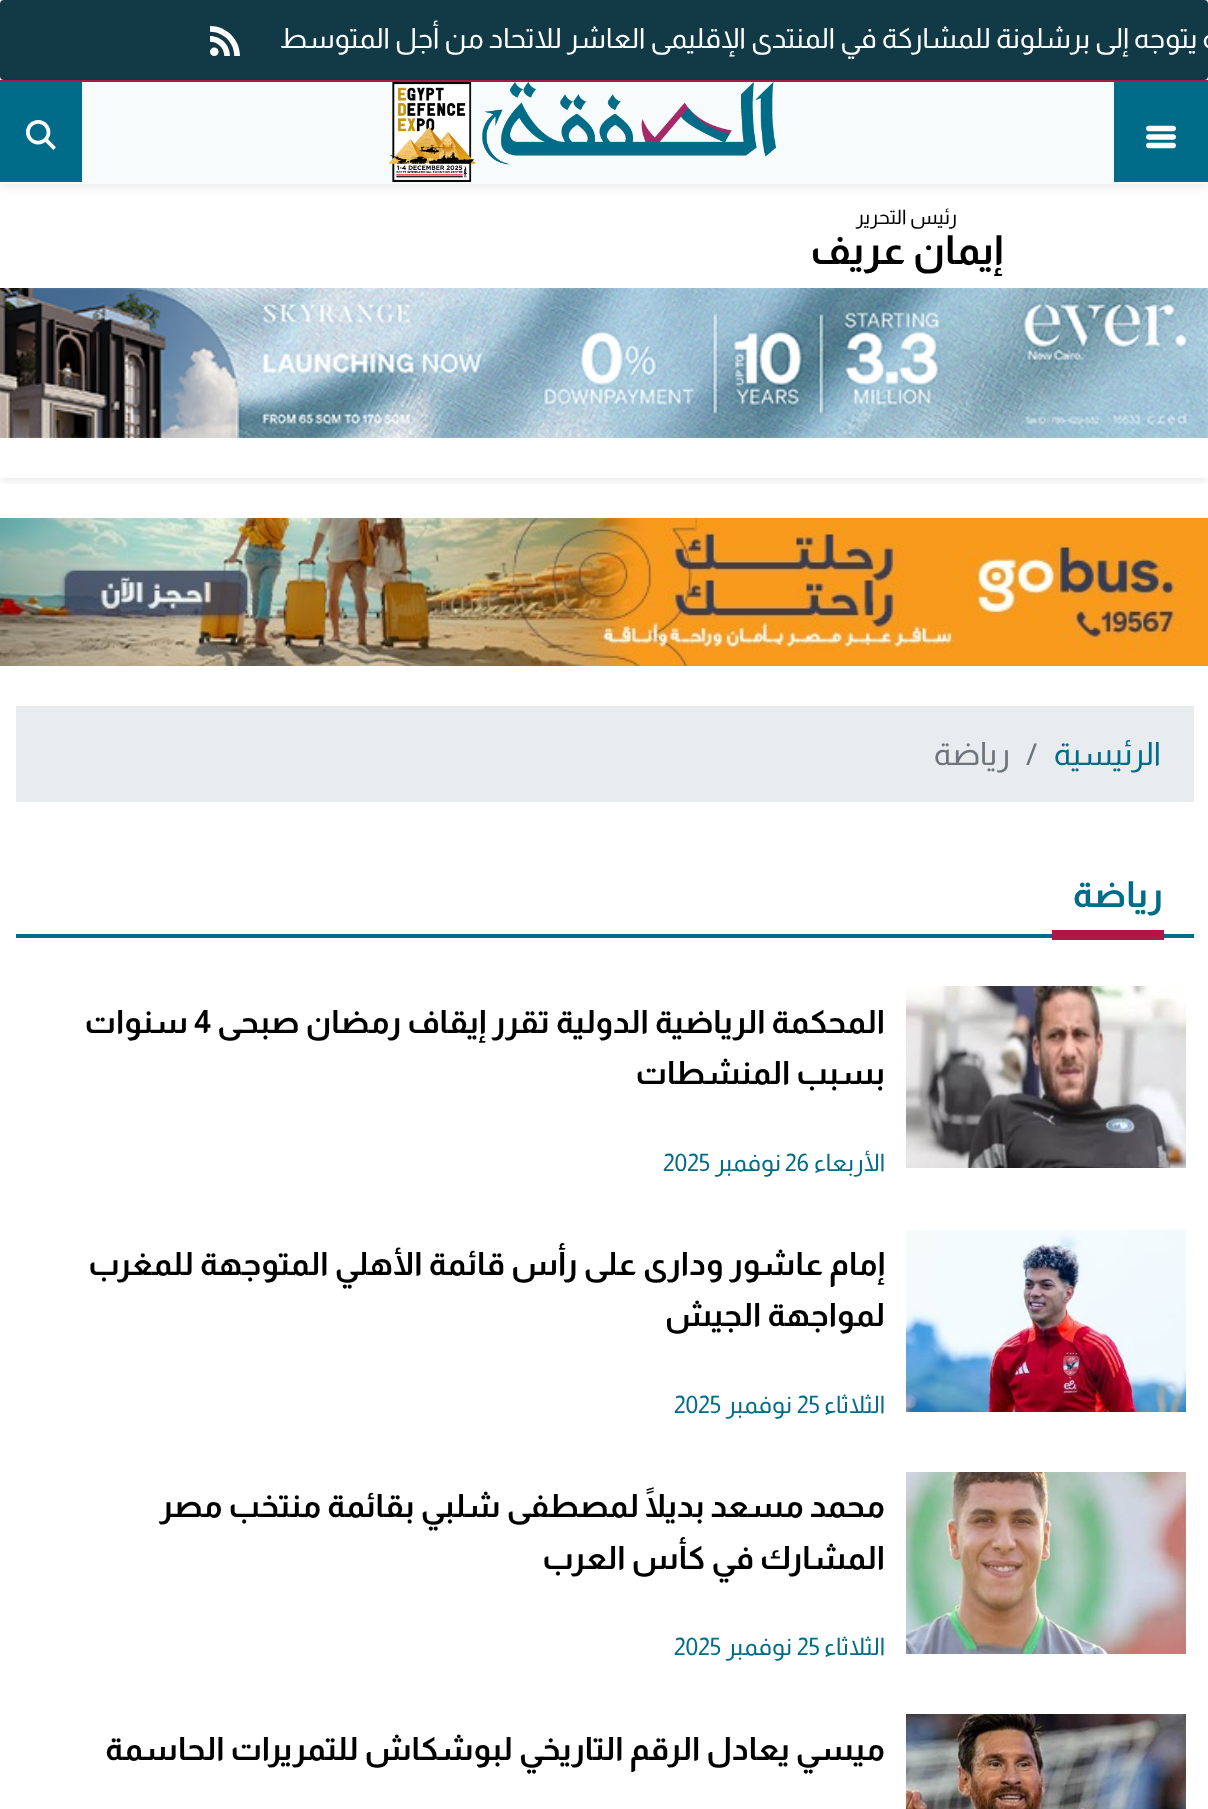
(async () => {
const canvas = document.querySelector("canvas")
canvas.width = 1208
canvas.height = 1809
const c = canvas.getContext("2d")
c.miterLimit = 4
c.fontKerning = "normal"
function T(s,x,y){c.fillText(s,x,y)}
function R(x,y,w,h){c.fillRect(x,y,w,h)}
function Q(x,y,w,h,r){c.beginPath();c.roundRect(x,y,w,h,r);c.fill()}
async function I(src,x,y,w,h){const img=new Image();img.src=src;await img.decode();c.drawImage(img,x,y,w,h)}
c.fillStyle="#fff"
R(0,0,1208,1809)
c.save()
c.beginPath()
c.rect(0,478,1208,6)
c.clip()
c.fillStyle="#00000012"
c.filter="blur(4px)"
c.beginPath()
c.rect(0,4,1208,478)
c.fill()
c.filter="none"
c.restore()
c.fillStyle="#123a46"
Q(0,0,1208,80,4)
c.direction="rtl"
c.font="28px Almarai"
c.fillStyle="#fff"
T("وزير الخارجية يتوجه إلى برشلونة للمشاركة في المنتدى الإقليمى العاشر للاتحاد من أجل المتوسط",1341,48)
await I("1.png",210,26,30,30)
c.fillStyle="#00000012"
c.filter="blur(4px)"
c.beginPath()
c.rect(0,84,1208,104)
c.fill()
c.filter="none"
c.fillStyle="#f8fbfc"
R(0,82,1208,102)
c.fillStyle="#ac1947"
R(0,80,1208,2)
c.fillStyle="#006c8a"
R(1114,82,94,100)
await I("2.png",1146,125,30,24)
await I("3.png",482,82,294,83)
await I("4.png",388,82,88,100)
R(0,82,82,100)
await I("5.png",26,120,30,30)
c.font="20px Almarai"
c.fillStyle="#000"
T("رئيس التحرير",957,224)
c.font="bold 40px Almarai"
T("إيمان عريف",1003,264)
await I("6.png",0,288,1208,150)
await I("7.png",0,518,1208,148)
c.fillStyle="#e9ecef"
R(16,706,1178,96)
c.font="32px Almarai"
c.fillStyle="#006c8a"
T("الرئيسية",1161,765)
c.direction="ltr"
c.fillStyle="#6c757d"
T("/",1026,765)
c.direction="rtl"
T("رياضة",1010,765)
c.fillStyle="#006c8a"
R(16,934,1178,4)
c.font="bold 36px Almarai"
T("رياضة",1163,907)
c.fillStyle="#ac1947"
R(1052,930,112,10)
await I("8.png",906,986,280,182)
c.font="bold 32px Almarai"
c.fillStyle="#000"
T("المحكمة الرياضية الدولية تقرر إيقاف رمضان صبحى",885,1033)
c.direction="ltr"
T("4",194,1033)
c.direction="rtl"
T("سنوات",188,1033)
T("بسبب المنشطات",885,1084)
c.font="24px Almarai"
c.fillStyle="#006c8a"
T("الأربعاء",885,1171)
c.direction="ltr"
T("26",785,1171)
c.direction="rtl"
T("نوفمبر",781,1171)
c.direction="ltr"
T("2025",663,1171)
await I("9.png",906,1230,280,182)
c.direction="rtl"
c.font="bold 32px Almarai"
c.fillStyle="#000"
T("إمام عاشور ودارى على رأس قائمة الأهلي المتوجهة للمغرب",885,1275)
T("لمواجهة الجيش",885,1326)
c.font="24px Almarai"
c.fillStyle="#006c8a"
T("الثلاثاء",885,1413)
c.direction="ltr"
T("25",797,1413)
c.direction="rtl"
T("نوفمبر",792,1413)
c.direction="ltr"
T("2025",674,1413)
await I("10.png",906,1472,280,182)
c.direction="rtl"
c.font="bold 32px Almarai"
c.fillStyle="#000"
T("محمد مسعد بديلًا لمصطفى شلبي بقائمة منتخب مصر",885,1517)
T("المشارك في كأس العرب",885,1569)
c.font="24px Almarai"
c.fillStyle="#006c8a"
T("الثلاثاء",885,1655)
c.direction="ltr"
T("25",797,1655)
c.direction="rtl"
T("نوفمبر",792,1655)
c.direction="ltr"
T("2025",674,1655)
await I("11.png",906,1714,280,95)
c.direction="rtl"
c.font="bold 32px Almarai"
c.fillStyle="#000"
T("ميسي يعادل الرقم التاريخي لبوشكاش للتمريرات الحاسمة",885,1760)
})()
